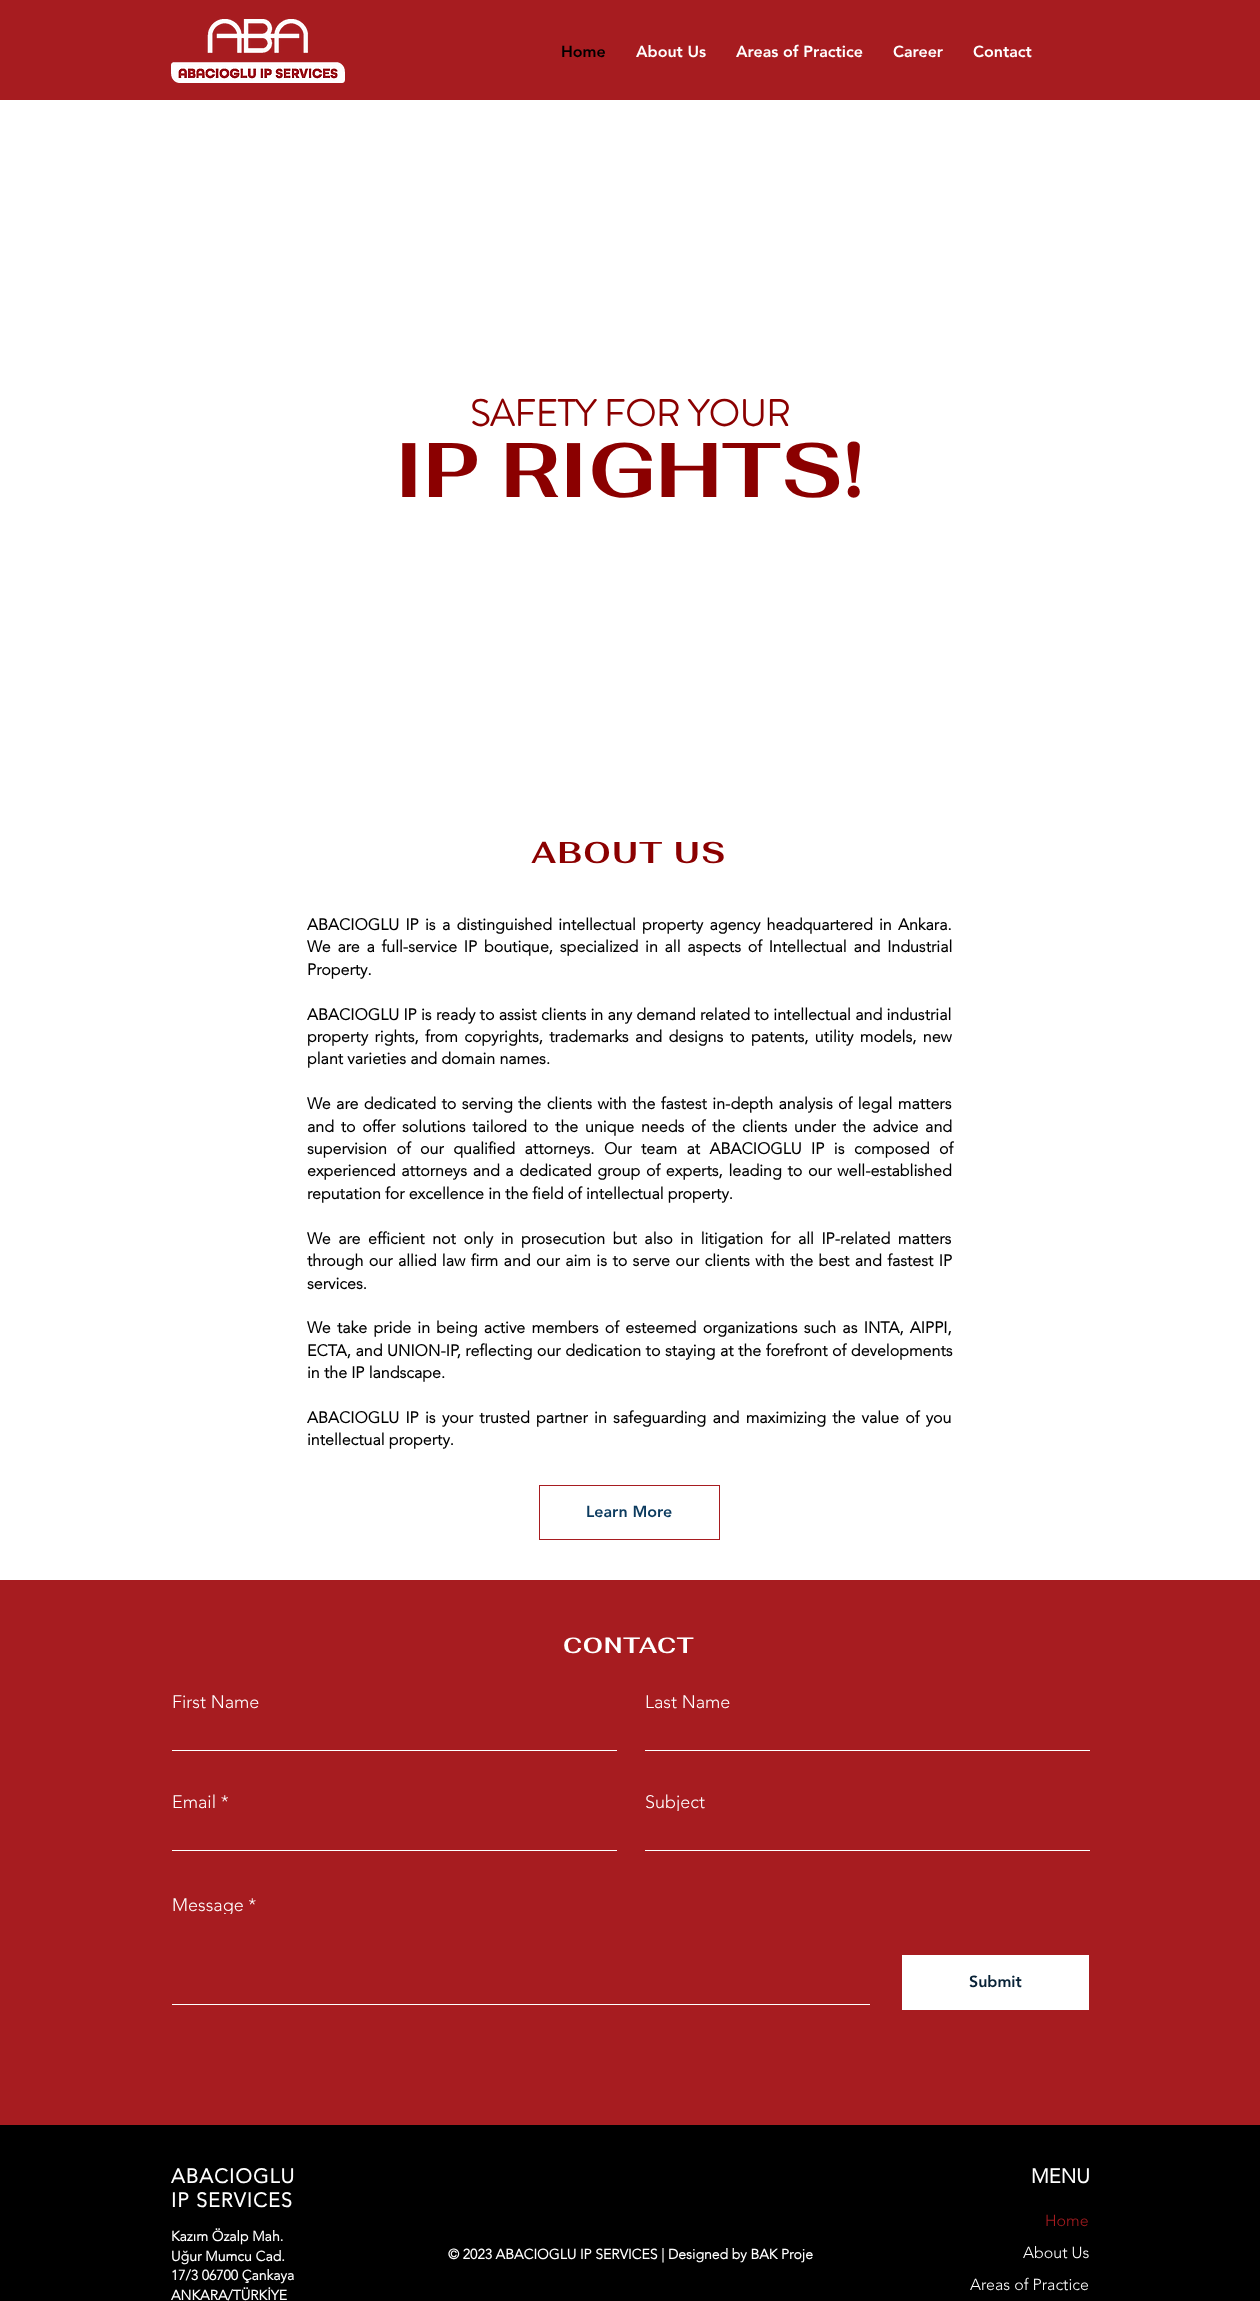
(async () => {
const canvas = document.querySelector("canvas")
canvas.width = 1260
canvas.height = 2301
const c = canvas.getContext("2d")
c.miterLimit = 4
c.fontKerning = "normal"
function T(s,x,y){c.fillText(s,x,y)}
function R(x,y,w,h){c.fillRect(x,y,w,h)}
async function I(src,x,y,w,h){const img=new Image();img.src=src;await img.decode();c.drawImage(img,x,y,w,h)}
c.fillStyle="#fff"
R(0,0,1260,2301)
c.fillStyle="#a71c20"
R(0,0,1260,100)
await I("1.png",171,19,174,64)
c.font="900 16px 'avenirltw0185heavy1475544'"
c.fillStyle="#000"
T("Home",561,57)
c.fillStyle="#fff"
T("About Us",636,57)
T("Areas of Practice",736,57)
T("Career",893,57)
T("Contact",973,57)
c.font="bold 37px 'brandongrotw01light'"
c.fillStyle="#8b0000"
T("SAFETY FOR YOUR",470,426)
c.font="bold 77px Fahkwang"
T("IP RIGHTS!",394,497)
c.letterSpacing="1.5px"
c.font="bold 30px Fahkwang"
T("ABOUT US",531,863)
c.letterSpacing="0px"
c.wordSpacing="2.1px"
c.font="bold 16px 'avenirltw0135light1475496'"
c.fillStyle="#000"
T("ABACIOGLU IP is a distinguished intellectual property agency headquartered in Ankara.",307,930)
c.wordSpacing="2.6px"
T("We are a full-service IP boutique, specialized in all aspects of Intellectual and Industrial",307,952)
c.wordSpacing="0px"
T("Property.",307,975)
c.wordSpacing="0.1px"
T("ABACIOGLU IP is ready to assist clients in any demand related to intellectual and industrial",307,1020)
c.wordSpacing="2.25px"
T("property rights, from copyrights, trademarks and designs to patents, utility models, new",307,1042)
c.wordSpacing="0px"
T("plant varieties and domain names.",307,1064)
c.wordSpacing="1.25px"
T("We are dedicated to serving the clients with the fastest in-depth analysis of legal matters",307,1109)
c.wordSpacing="2.6px"
T("and to offer solutions tailored to the unique needs of the clients under the advice and",307,1132)
c.wordSpacing="5.25px"
T("supervision of our qualified attorneys. Our team at ABACIOGLU IP is composed of",307,1154)
c.wordSpacing="1.5px"
T("experienced attorneys and a dedicated group of experts, leading to our well-established",307,1176)
c.wordSpacing="0px"
T("reputation for excellence in the field of intellectual property.",307,1199)
c.wordSpacing="3.4px"
T("We are efficient not only in prosecution but also in litigation for all IP-related matters",307,1244)
c.wordSpacing="1.25px"
T("through our allied law firm and our aim is to serve our clients with the best and fastest IP",307,1266)
c.wordSpacing="0px"
T("services.",307,1289)
c.wordSpacing="2.1px"
T("We take pride in being active members of esteemed organizations such as INTA, AIPPI,",307,1333)
c.wordSpacing="0.4px"
T("ECTA, and UNION-IP, reflecting our dedication to staying at the forefront of developments",307,1356)
c.wordSpacing="0px"
T("in the IP landscape.",307,1378)
c.wordSpacing="2.1px"
T("ABACIOGLU IP is your trusted partner in safeguarding and maximizing the value of you",307,1423)
c.wordSpacing="0px"
T("intellectual property.",307,1445)
c.strokeStyle="#a71c20"
c.strokeRect(539.5,1485.5,180,54)
c.font="900 16px 'avenirltw0185heavy1475544'"
c.fillStyle="#0c3b5f"
T("Learn More",586,1517)
c.fillStyle="#a71c20"
R(0,1580,1260,545)
c.letterSpacing="1px"
c.font="bold 22px Fahkwang"
c.fillStyle="#fff"
T("CONTACT",563,1653)
c.letterSpacing="0px"
c.font="300 18px 'avenirltw0135light1475496'"
T("First Name",172,1708)
R(172,1750,445,1)
T("Last Name",645,1708)
R(645,1750,445,1)
T("Email *",172,1808)
R(172,1850,445,1)
T("Subject",645,1808)
c.fillStyle="#a71c20"
R(675,1811,4,2)
c.fillStyle="#fff"
R(645,1850,445,1)
T("Message *",172,1911)
c.fillStyle="#a71c20"
R(224,1914,8,2)
c.fillStyle="#fff"
R(172,2004,698,1)
R(902,1955,187,55)
c.font="900 16px 'avenirltw0185heavy1475544'"
c.fillStyle="#072136"
T("Submit",969,1987)
c.fillStyle="#000"
R(0,2125,1260,176)
c.letterSpacing="1px"
c.font="bold 20px 'avenirltw0135light1475496'"
c.fillStyle="#fff"
T("ABACIOGLU",171,2183)
T("IP SERVICES",171,2207)
c.letterSpacing="0px"
T("MENU",1031,2183)
c.font="bold 14px 'avenirltw0135light1475496'"
T("Kazım Özalp Mah.",171,2241)
T("Uğur Mumcu Cad.",171,2261)
T("17/3 06700 Çankaya",171,2280)
T("ANKARA/TÜRKİYE",171,2300)
T("© 2023 ABACIOGLU IP SERVICES | Designed by BAK Proje",448,2259)
c.font="300 16px 'avenirltw0135light1475496'"
c.fillStyle="#a71c20"
T("Home",1045,2226)
c.fillStyle="#fff"
T("About Us",1023,2258)
T("Areas of Practice",970,2290)
})()
